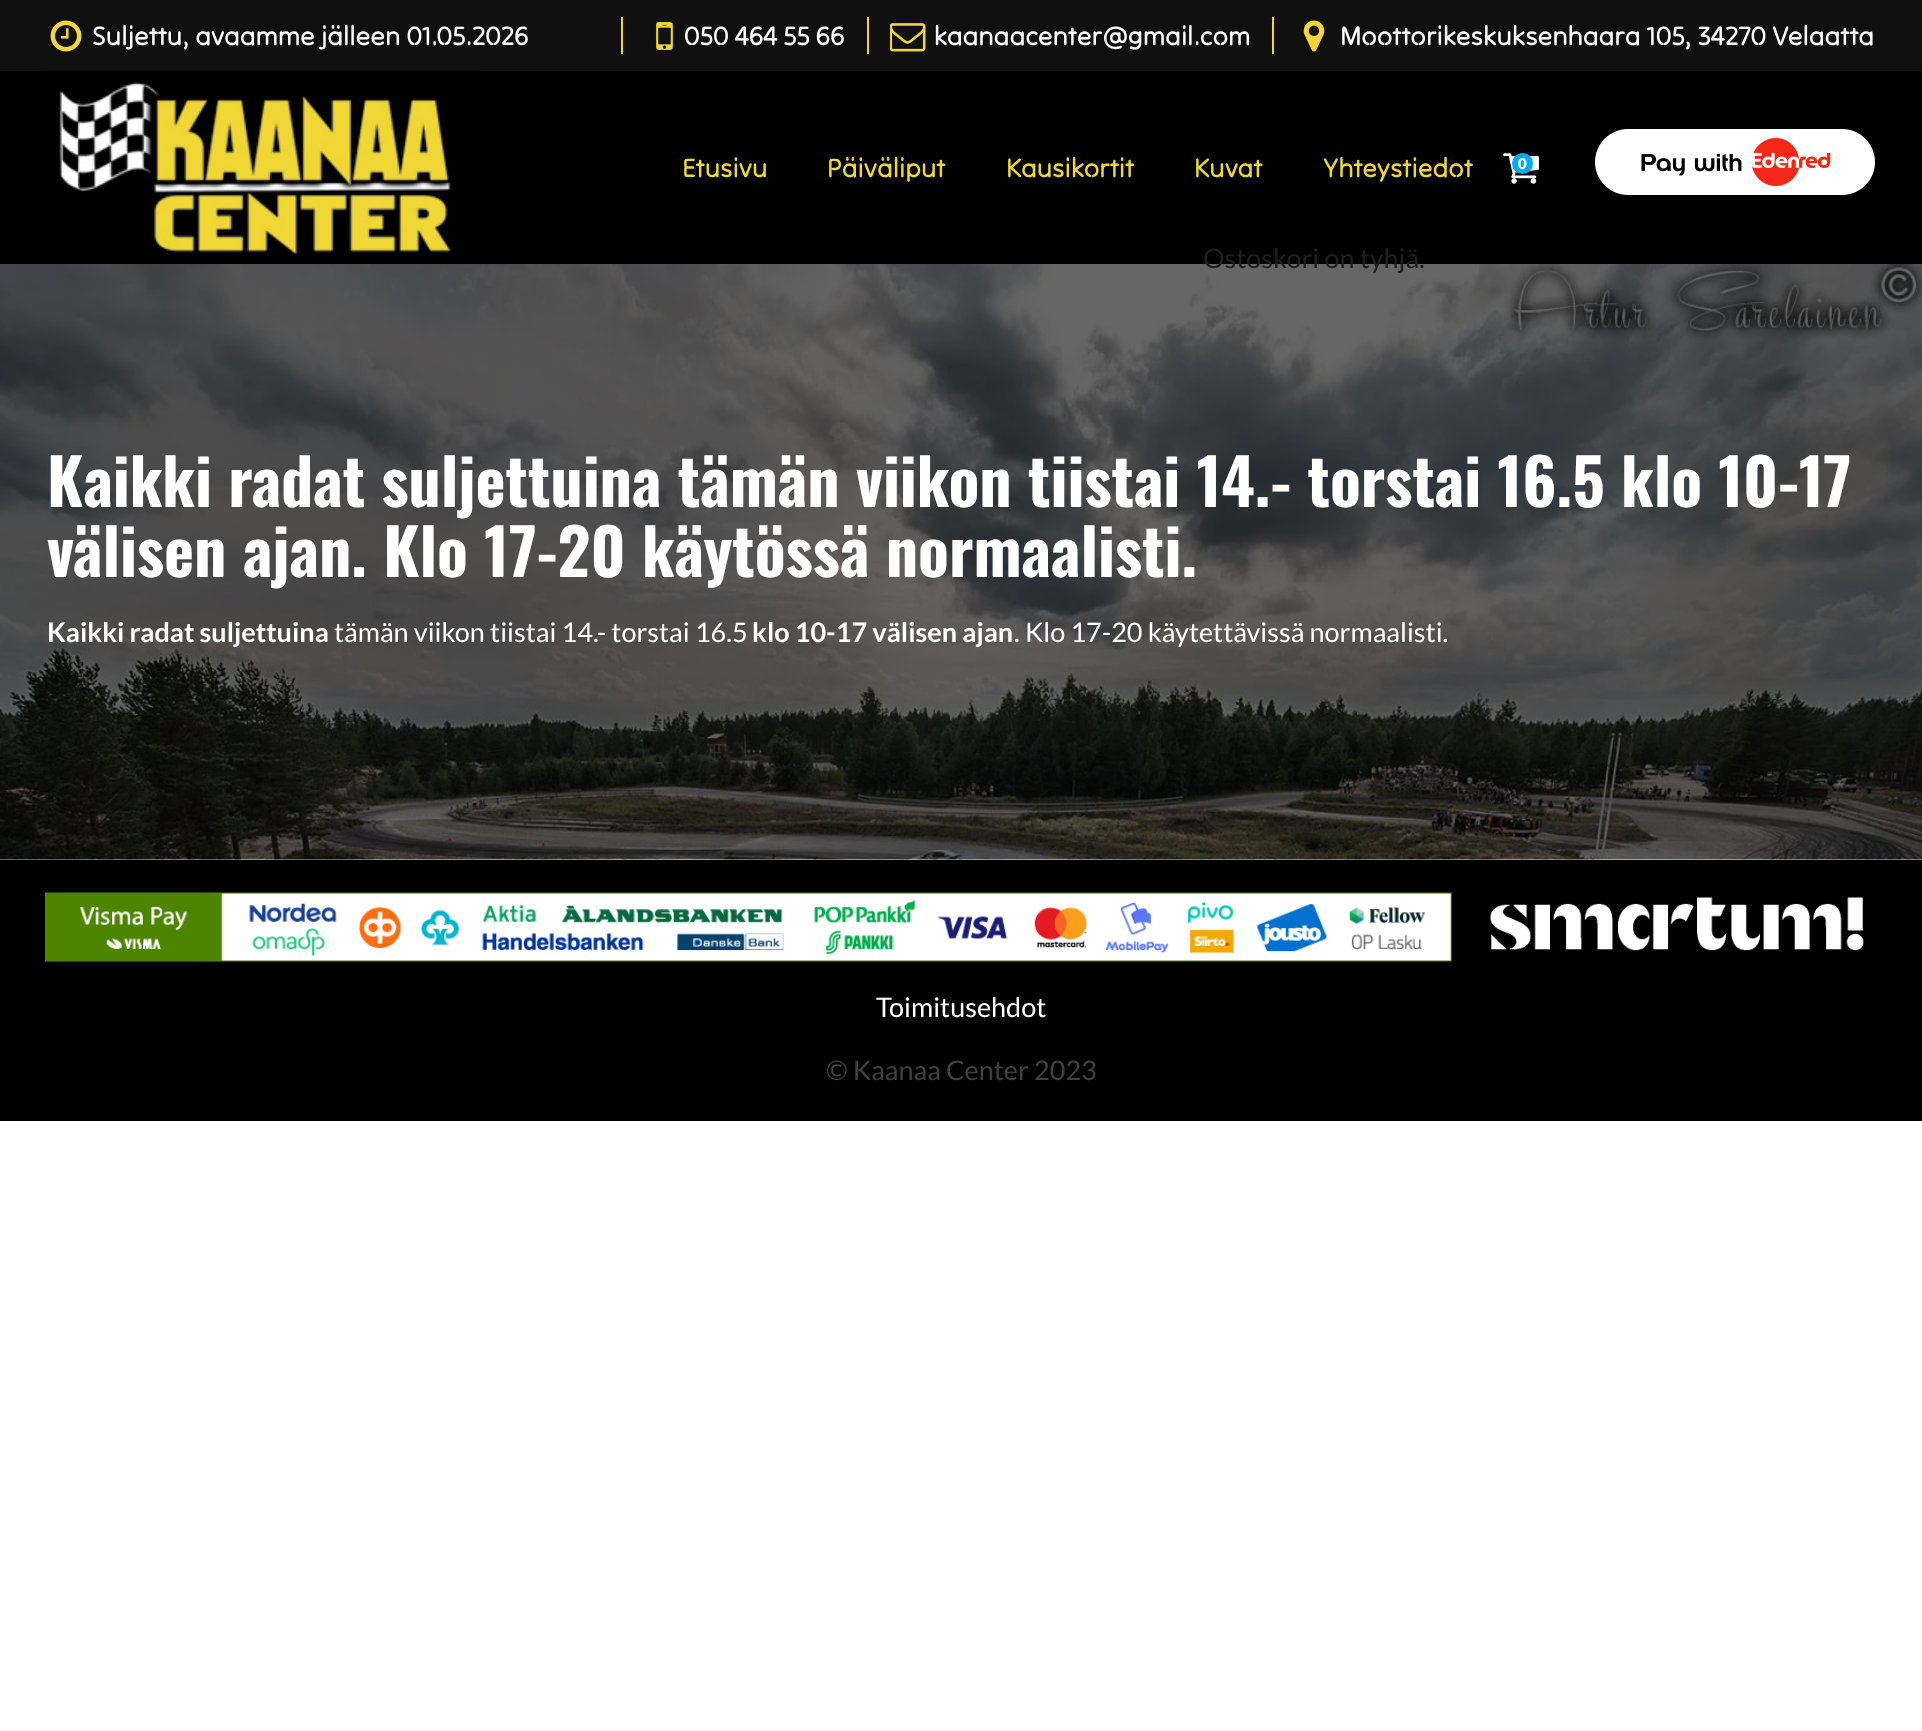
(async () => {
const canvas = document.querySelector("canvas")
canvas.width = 1922
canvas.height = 1731
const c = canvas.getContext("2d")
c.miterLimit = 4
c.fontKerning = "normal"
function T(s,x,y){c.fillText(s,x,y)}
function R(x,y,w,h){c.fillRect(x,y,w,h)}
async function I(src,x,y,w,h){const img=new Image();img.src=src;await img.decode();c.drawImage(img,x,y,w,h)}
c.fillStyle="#fff"
R(0,0,1922,1731)
c.fillStyle="#101010"
R(0,0,1922,71)
await I("1.png",50,20,32,32)
c.font="27px Tilt Neon"
c.fillStyle="#fff"
T("Suljettu, avaamme jälleen 01.05.2026",92,45)
c.fillStyle="#f0d735"
R(621,17,2,37)
await I("2.png",656,22,17,28)
c.fillStyle="#fff"
T("050 464 55 66",684,45)
c.fillStyle="#f0d735"
R(867,17,2,37)
await I("3.png",890,23,36,29)
c.fillStyle="#fff"
T("kaanaacenter@gmail.com",934,45)
c.fillStyle="#f0d735"
R(1272,17,2,37)
await I("4.png",1303,20,22,32)
c.fillStyle="#fff"
T("Moottorikeskuksenhaara 105, 34270 Velaatta",1340,45)
c.fillStyle="#000"
R(0,71,1922,193)
await I("5.png",45,70,435,185)
c.fillStyle="#f0d735"
T("Etusivu",682,177)
T("Päiväliput",827,177)
T("Kausikortit",1006,177)
T("Kuvat",1194,177)
T("Yhteystiedot",1323,177)
await I("6.png",1595,129,280,66)
await I("7.png",1503,153,36,31)
c.fillStyle="#00adef"
c.beginPath()
c.arc(1522.5,163.5,10.5,0,7)
c.fill()
c.font="900 15px Lato"
c.fillStyle="#fff"
T("0",1518,169)
await I("8.png",0,264,1922,596)
c.font="27px Lato"
c.fillStyle="#1e1e1e"
T("Ostoskori on tyhjä.",1203,268)
c.font="bold 63.95px Oswald"
c.fillStyle="#fff"
T("Kaikki radat suljettuina tämän viikon tiistai 14.- torstai 16.5 klo 10-17",47,507)
T("välisen ajan. Klo 17-20 käytössä normaalisti.",47,577)
c.font="bold 27px Lato"
T("Kaikki radat suljettuina",47,642)
c.font="27px Lato"
T("tämän viikon tiistai 14.- torstai 16.5",334,642)
c.font="bold 27px Lato"
T("klo 10-17 välisen ajan",752,642)
c.font="27px Lato"
T(". Klo 17-20 käytettävissä normaalisti.",1014,642)
c.fillStyle="#000"
R(0,860,1922,261)
await I("9.png",45,892,1407,70)
await I("10.png",1490,897,374,54)
c.fillStyle="#fff"
T("Toimitusehdot",876,1017)
c.fillStyle="#404040"
T("© Kaanaa Center 2023",826,1080)
})()
